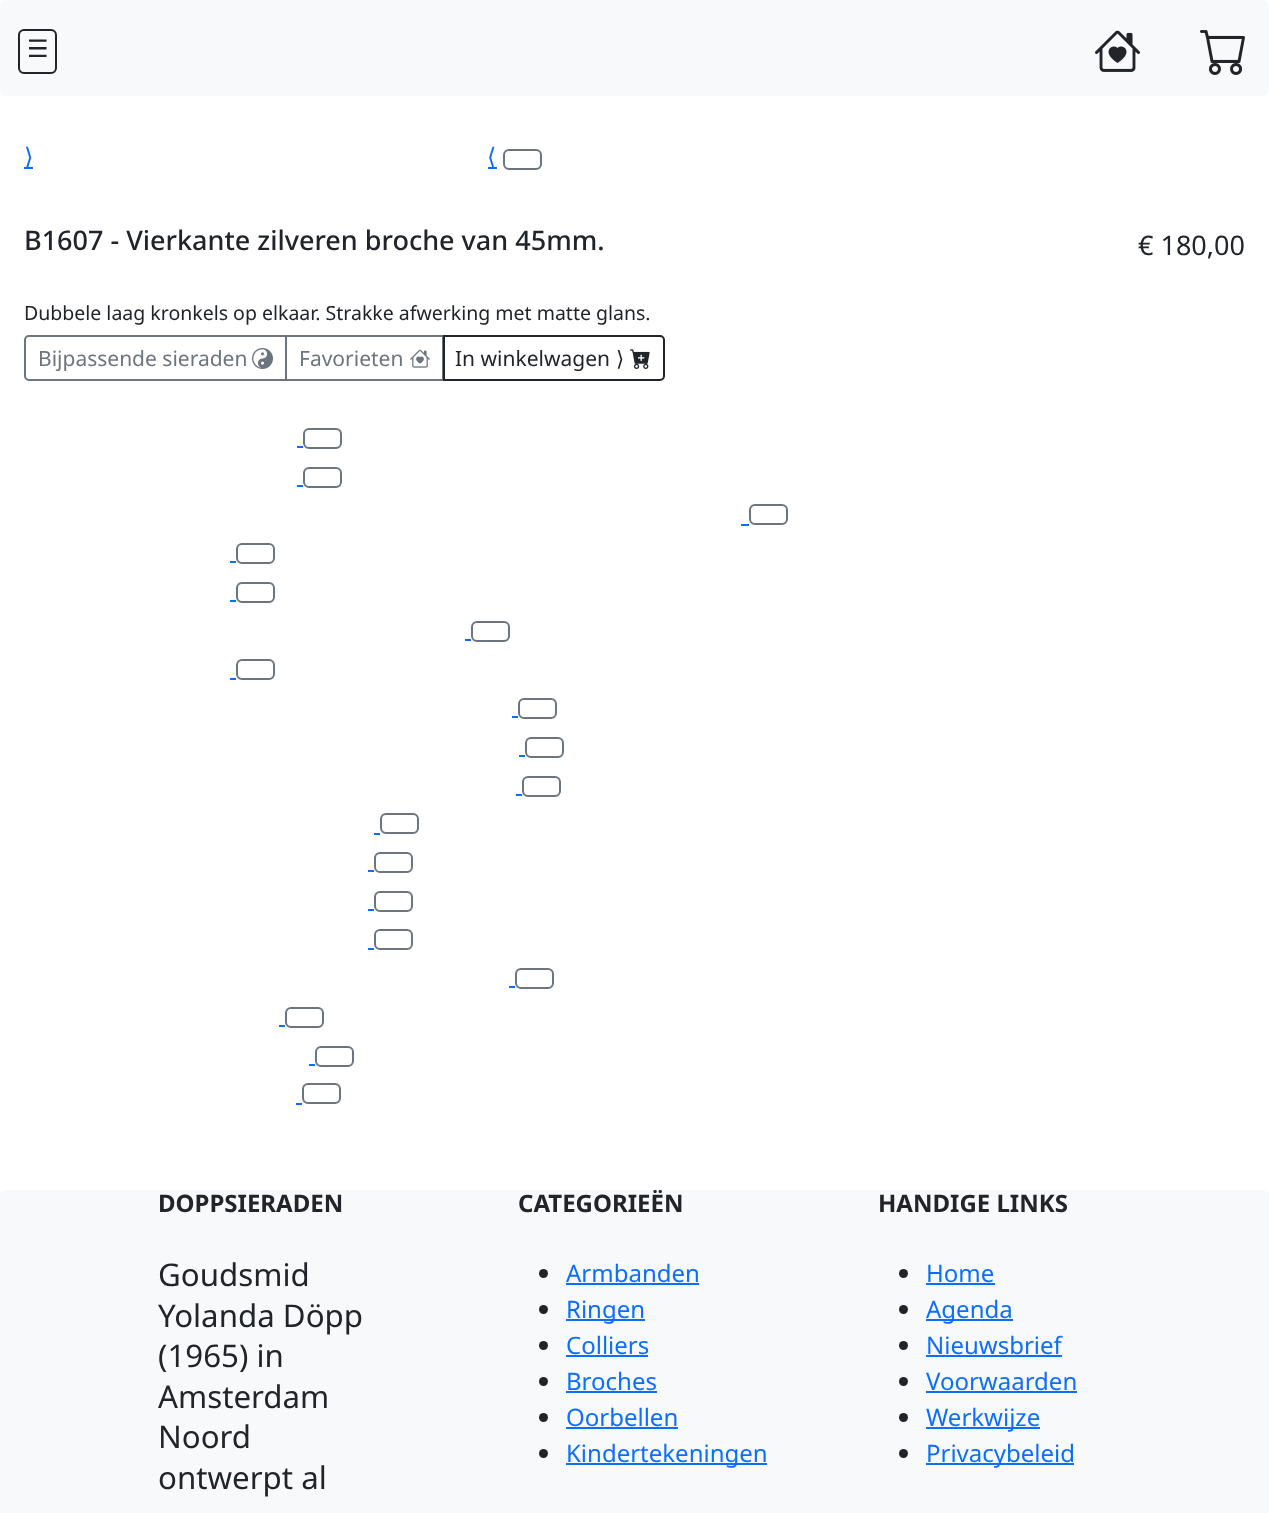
(async () => {
const canvas = document.querySelector("canvas")
canvas.width = 1269
canvas.height = 1513
const c = canvas.getContext("2d")
c.miterLimit = 4
c.fontKerning = "normal"
function T(s,x,y){c.fillText(s,x,y)}
function R(x,y,w,h){c.fillRect(x,y,w,h)}
function Q(x,y,w,h,r){c.beginPath();c.roundRect(x,y,w,h,r);c.fill()}
async function I(src,x,y,w,h){const img=new Image();img.src=src;await img.decode();c.drawImage(img,x,y,w,h)}
c.fillStyle="#fff"
R(0,0,1269,1513)
c.fillStyle="#f8f9fa"
Q(0,0,1269,96,6)
c.beginPath()
c.roundRect(19,30,37,43,5)
c.strokeStyle="#212529"
c.lineWidth=2
c.stroke()
c.font="24px DejaVu Sans"
c.fillStyle="#212529"
T("☰",27,57)
await I("1.png",1095,30,45,42)
await I("2.png",1200,30,45,45)
c.fillStyle="#0d6efd"
R(24,167,9,2)
T("⟩",24,165)
R(488,167,9,2)
T("⟨",487,165)
c.beginPath()
c.roundRect(504,150,37,19,5)
c.strokeStyle="#6c757d"
c.stroke()
c.font="500 27px Noto Sans"
c.fillStyle="#212529"
T("B1607 - Vierkante zilveren broche van 45mm.",24,250)
c.font="27px Noto Sans"
T("€ 180,00",1138,255)
c.font="19.5px Noto Sans"
T("Dubbele laag kronkels op elkaar. Strakke afwerking met matte glans.",24,320)
c.beginPath()
c.roundRect(25,336,261,44,[4,0,0,4])
c.stroke()
c.font="21px Noto Sans"
c.fillStyle="#6c757d"
T("Bijpassende sieraden",38,366)
await I("3.png",252,348,21,21)
c.strokeRect(286,336,157,44)
T("Favorieten",299,366)
await I("4.png",410,349,20,19)
c.beginPath()
c.roundRect(444,336,220,44,[0,4,4,0])
c.strokeStyle="#212529"
c.stroke()
c.fillStyle="#212529"
T("In winkelwagen",455,366)
c.font="21px DejaVu Sans"
T("⟩",616,366)
await I("5.png",630,349,20,20)
c.fillStyle="#0d6efd"
R(297,446,6,2)
c.beginPath()
c.roundRect(304,429,37,19,5)
c.strokeStyle="#6c757d"
c.stroke()
R(297,485,6,2)
c.beginPath()
c.roundRect(304,468,37,19,5)
c.stroke()
R(741,524,8,2)
c.beginPath()
c.roundRect(750,505,37,19,5)
c.stroke()
R(230,561,6,2)
c.beginPath()
c.roundRect(237,544,37,19,5)
c.stroke()
R(230,600,6,2)
c.beginPath()
c.roundRect(237,583,37,19,5)
c.stroke()
R(465,639,6,2)
c.beginPath()
c.roundRect(472,622,37,19,5)
c.stroke()
R(230,678,6,2)
c.beginPath()
c.roundRect(237,660,37,19,5)
c.stroke()
R(512,716,6,2)
c.beginPath()
c.roundRect(519,699,37,19,5)
c.stroke()
R(519,755,6,2)
c.beginPath()
c.roundRect(526,738,37,19,5)
c.stroke()
R(516,794,6,2)
c.beginPath()
c.roundRect(523,777,37,19,5)
c.stroke()
R(374,833,6,2)
c.beginPath()
c.roundRect(381,814,37,19,5)
c.stroke()
R(368,870,6,2)
c.beginPath()
c.roundRect(375,853,37,19,5)
c.stroke()
R(368,909,6,2)
c.beginPath()
c.roundRect(375,892,37,19,5)
c.stroke()
R(368,948,6,2)
c.beginPath()
c.roundRect(375,930,37,19,5)
c.stroke()
R(509,986,6,2)
c.beginPath()
c.roundRect(516,969,37,19,5)
c.stroke()
R(279,1025,6,2)
c.beginPath()
c.roundRect(286,1008,37,19,5)
c.stroke()
R(309,1064,6,2)
c.beginPath()
c.roundRect(316,1047,37,19,5)
c.stroke()
R(296,1103,6,2)
c.beginPath()
c.roundRect(303,1084,37,19,5)
c.stroke()
c.fillStyle="#f8f9fa"
Q(0,1190,1269,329,6)
c.font="bold 24px Noto Sans"
c.fillStyle="#212529"
T("DOPPSIERADEN",158,1212)
c.font="31.25px Noto Sans"
T("Goudsmid",158,1286)
T("Yolanda Döpp",158,1327)
T("(1965) in",158,1367)
T("Amsterdam",158,1408)
T("Noord",158,1448)
T("ontwerpt al",158,1489)
c.font="bold 24px Noto Sans"
T("CATEGORIEËN",518,1212)
c.beginPath()
c.arc(543.5,1273.5,4.5,0,7)
c.fill()
c.font="24px Noto Sans"
c.fillStyle="#0d6efd"
T("Armbanden",566,1282)
R(566,1283,133,2)
c.fillStyle="#212529"
c.beginPath()
c.arc(543.5,1309.5,4.5,0,7)
c.fill()
c.fillStyle="#0d6efd"
R(566,1319,79,2)
T("Ringen",566,1318)
c.fillStyle="#212529"
c.beginPath()
c.arc(543.5,1345.5,4.5,0,7)
c.fill()
c.fillStyle="#0d6efd"
T("Colliers",566,1354)
R(566,1355,82,2)
c.fillStyle="#212529"
c.beginPath()
c.arc(543.5,1381.5,4.5,0,7)
c.fill()
c.fillStyle="#0d6efd"
T("Broches",566,1390)
R(566,1391,91,2)
c.fillStyle="#212529"
c.beginPath()
c.arc(543.5,1417.5,4.5,0,7)
c.fill()
c.fillStyle="#0d6efd"
T("Oorbellen",566,1426)
R(566,1427,112,2)
c.fillStyle="#212529"
c.beginPath()
c.arc(543.5,1453.5,4.5,0,7)
c.fill()
c.fillStyle="#0d6efd"
R(566,1463,201,2)
T("Kindertekeningen",566,1462)
c.font="bold 24px Noto Sans"
c.fillStyle="#212529"
T("HANDIGE LINKS",878,1212)
c.beginPath()
c.arc(903.5,1273.5,4.5,0,7)
c.fill()
c.font="24px Noto Sans"
c.fillStyle="#0d6efd"
T("Home",926,1282)
R(926,1283,69,2)
c.fillStyle="#212529"
c.beginPath()
c.arc(903.5,1309.5,4.5,0,7)
c.fill()
c.fillStyle="#0d6efd"
R(926,1319,87,2)
T("Agenda",926,1318)
c.fillStyle="#212529"
c.beginPath()
c.arc(903.5,1345.5,4.5,0,7)
c.fill()
c.fillStyle="#0d6efd"
T("Nieuwsbrief",926,1354)
R(926,1355,136,2)
c.fillStyle="#212529"
c.beginPath()
c.arc(903.5,1381.5,4.5,0,7)
c.fill()
c.fillStyle="#0d6efd"
T("Voorwaarden",926,1390)
R(926,1391,151,2)
c.fillStyle="#212529"
c.beginPath()
c.arc(903.5,1417.5,4.5,0,7)
c.fill()
c.fillStyle="#0d6efd"
R(926,1427,114,2)
T("Werkwijze",926,1426)
c.fillStyle="#212529"
c.beginPath()
c.arc(903.5,1453.5,4.5,0,7)
c.fill()
c.fillStyle="#0d6efd"
R(926,1463,148,2)
T("Privacybeleid",926,1462)
})()
